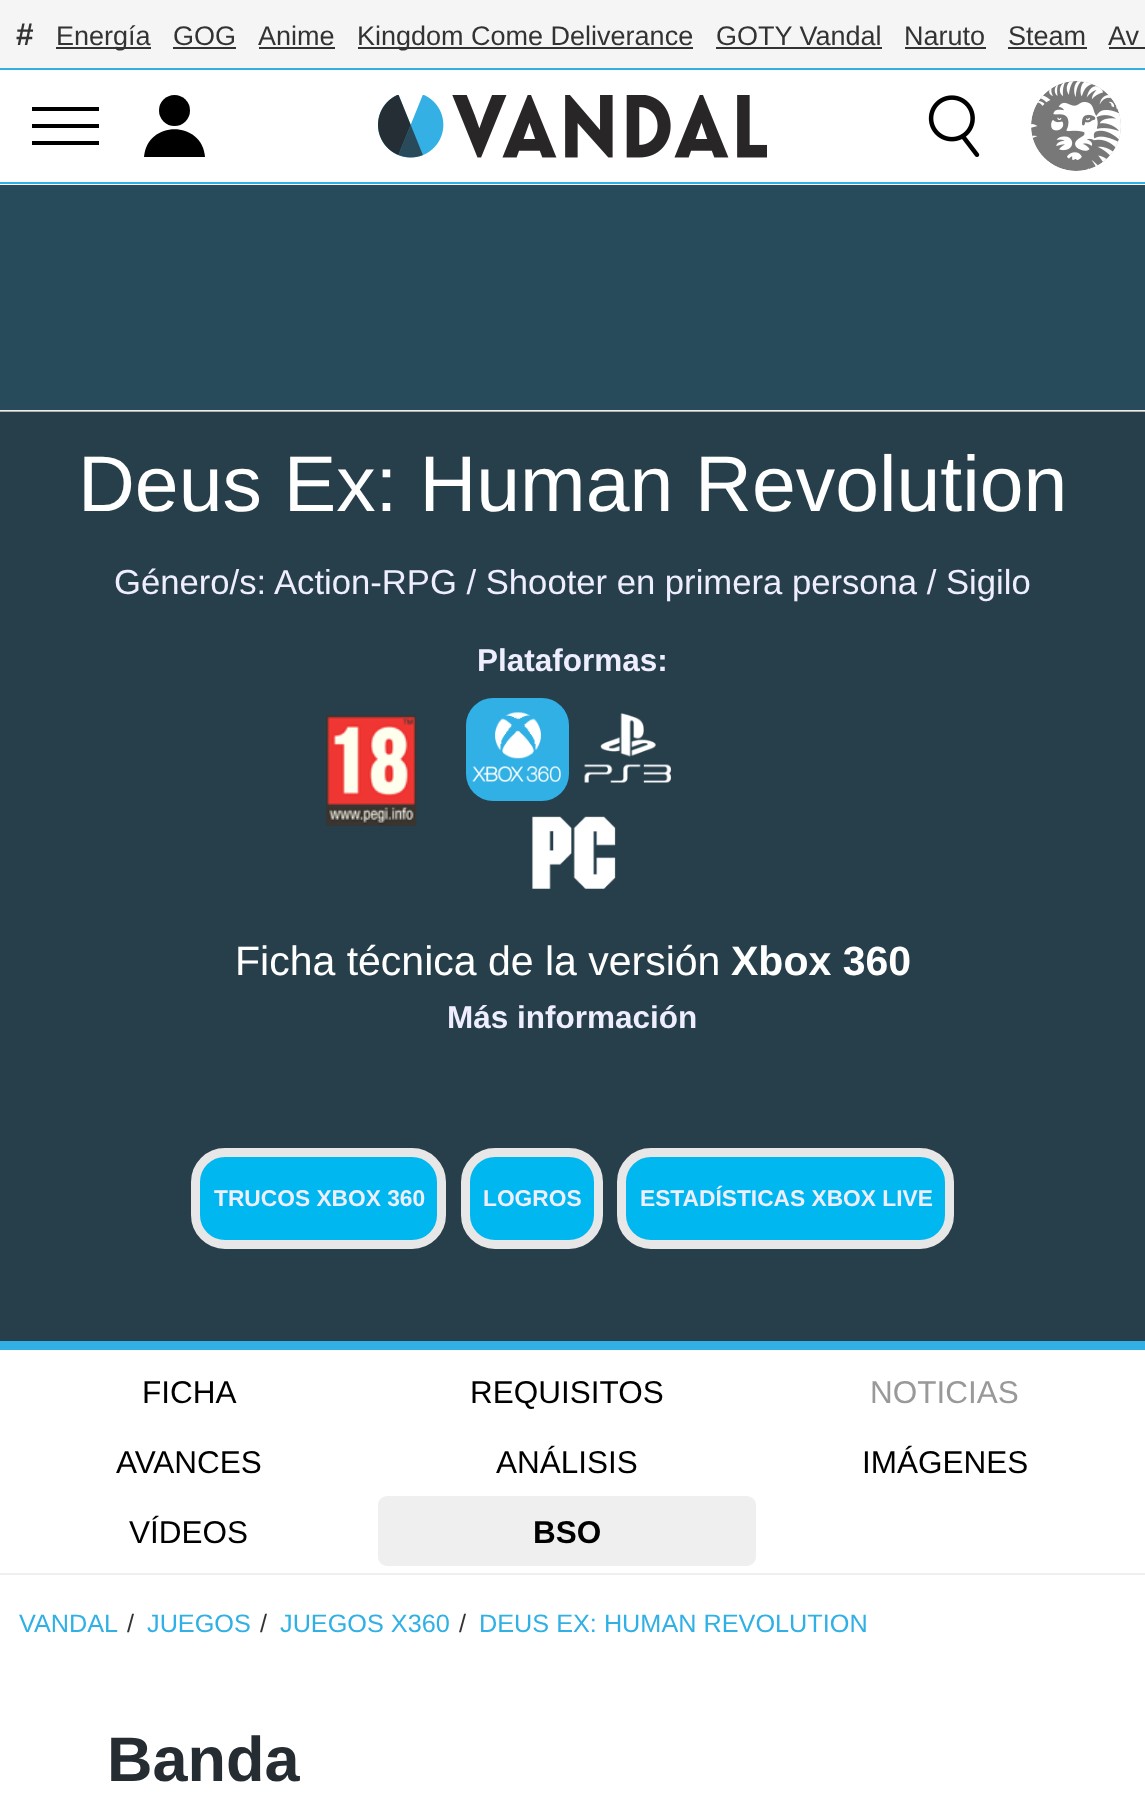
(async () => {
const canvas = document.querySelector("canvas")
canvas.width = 1145
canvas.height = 1798
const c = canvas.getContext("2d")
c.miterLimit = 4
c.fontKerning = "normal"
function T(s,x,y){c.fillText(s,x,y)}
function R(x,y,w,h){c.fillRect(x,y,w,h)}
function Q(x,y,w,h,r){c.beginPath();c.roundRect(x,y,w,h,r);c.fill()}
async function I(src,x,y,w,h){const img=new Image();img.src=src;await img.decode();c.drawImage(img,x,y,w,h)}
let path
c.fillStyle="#284b5b"
R(0,0,1145,1798)
c.fillStyle="#273f4b"
R(0,412,1145,929)
c.fillStyle="#f5f5f5"
R(0,0,1145,68)
c.fillStyle="#30b0e5"
R(0,68,1145,2)
c.font="bold 31.5px Liberation Sans"
c.fillStyle="#333"
T("#",16,45)
R(56,47,95,2)
c.font="27px Liberation Sans"
T("Energía",56,45)
T("GOG",173,45)
R(173,47,63,2)
T("Anime",258,45)
R(259,47,76,2)
R(358,47,335,2)
T("Kingdom Come Deliverance",357,45)
T("GOTY Vandal",716,45)
R(716,47,166,2)
T("Naruto",904,45)
R(905,47,81,2)
T("Steam",1008,45)
R(1008,47,79,2)
T("Av",1108,45)
R(1109,47,36,2)
c.fillStyle="#fff"
R(0,70,1145,115)
c.fillStyle="#30b0e5"
R(0,182,1145,2)
c.fillStyle="#000"
R(32,107,67,4)
R(32,124,67,4)
R(32,141,67,4)
c.beginPath()
c.arc(174.5,110.5,15.5,0,7)
c.fill()
path = new Path2D("M205 157c-3-37-58-37-61 0z")
c.fill(path)
await I("1.png",378,95,389,63)
await I("2.png",928,95,52,62)
await I("3.png",1031,81,90,90)
c.fillStyle="#eee"
R(0,410,1145,1)
c.fillStyle="#b1b1b1"
R(0,411,1145,1)
c.fillStyle="#30b0e5"
R(0,1341,1145,9)
c.font="78.75px Liberation Sans"
c.fillStyle="#fff"
T("Deus Ex: Human Revolution",78,511)
c.font="34.65px Liberation Sans"
c.fillStyle="#eef"
T("Género/s:",114,594)
T("Action-RPG / Shooter en primera persona / Sigilo",274,594)
c.font="bold 31.5px Liberation Sans"
T("Plataformas:",477,671)
c.fillStyle="#30b0e5"
Q(466,698,103,103,27)
await I("4.png",472,712,89,70)
await I("5.png",584,713,87,70)
await I("6.png",532,816,84,73)
await I("7.png",326,715,91,111)
c.font="41px Liberation Sans"
c.fillStyle="#fff"
T("Ficha técnica de la versión",235,975)
c.font="bold 41px Liberation Sans"
T("Xbox 360",731,975)
c.font="bold 31.5px Liberation Sans"
c.fillStyle="#eef"
T("Más información",447,1028)
c.fillStyle="#00b7ef"
c.beginPath()
c.roundRect(195.5,1152.5,246,92,29.5)
c.fill()
c.strokeStyle="#e7e7e7"
c.lineWidth=9
c.stroke()
c.font="bold 22.75px Liberation Sans"
c.fillStyle="#eef"
T("TRUCOS XBOX 360",214,1206)
c.fillStyle="#00b7ef"
c.beginPath()
c.roundRect(465.5,1152.5,133,92,29.5)
c.fill()
c.stroke()
c.fillStyle="#eef"
T("LOGROS",483,1206)
c.fillStyle="#00b7ef"
c.beginPath()
c.roundRect(621.5,1152.5,328,92,29.5)
c.fill()
c.stroke()
c.fillStyle="#eef"
T("ESTADÍSTICAS XBOX LIVE",640,1206)
c.fillStyle="#fff"
R(0,1350,1145,448)
c.fillStyle="#efefef"
R(0,1573,1145,2)
c.font="31.5px Liberation Sans"
c.fillStyle="#000"
T("FICHA",142,1403)
T("REQUISITOS",470,1403)
c.fillStyle="#999"
T("NOTICIAS",870,1403)
c.fillStyle="#000"
T("AVANCES",116,1473)
T("ANÁLISIS",496,1473)
T("IMÁGENES",862,1473)
T("VÍDEOS",129,1543)
c.fillStyle="#efefef"
Q(378,1496,378,70,9)
c.font="bold 31.5px Liberation Sans"
c.fillStyle="#000"
T("BSO",533,1543)
c.font="25.25px Liberation Sans"
c.fillStyle="#30b0e5"
T("VANDAL",19,1632)
c.fillStyle="#333"
T("/",127,1632)
c.fillStyle="#30b0e5"
T("JUEGOS",147,1632)
c.fillStyle="#333"
T("/",260,1632)
c.fillStyle="#30b0e5"
T("JUEGOS X360",280,1632)
c.fillStyle="#333"
T("/",459,1632)
c.fillStyle="#30b0e5"
T("DEUS EX: HUMAN REVOLUTION",479,1632)
c.font="bold 63px Liberation Sans"
c.fillStyle="#252d33"
T("Banda",107,1781)
})()
